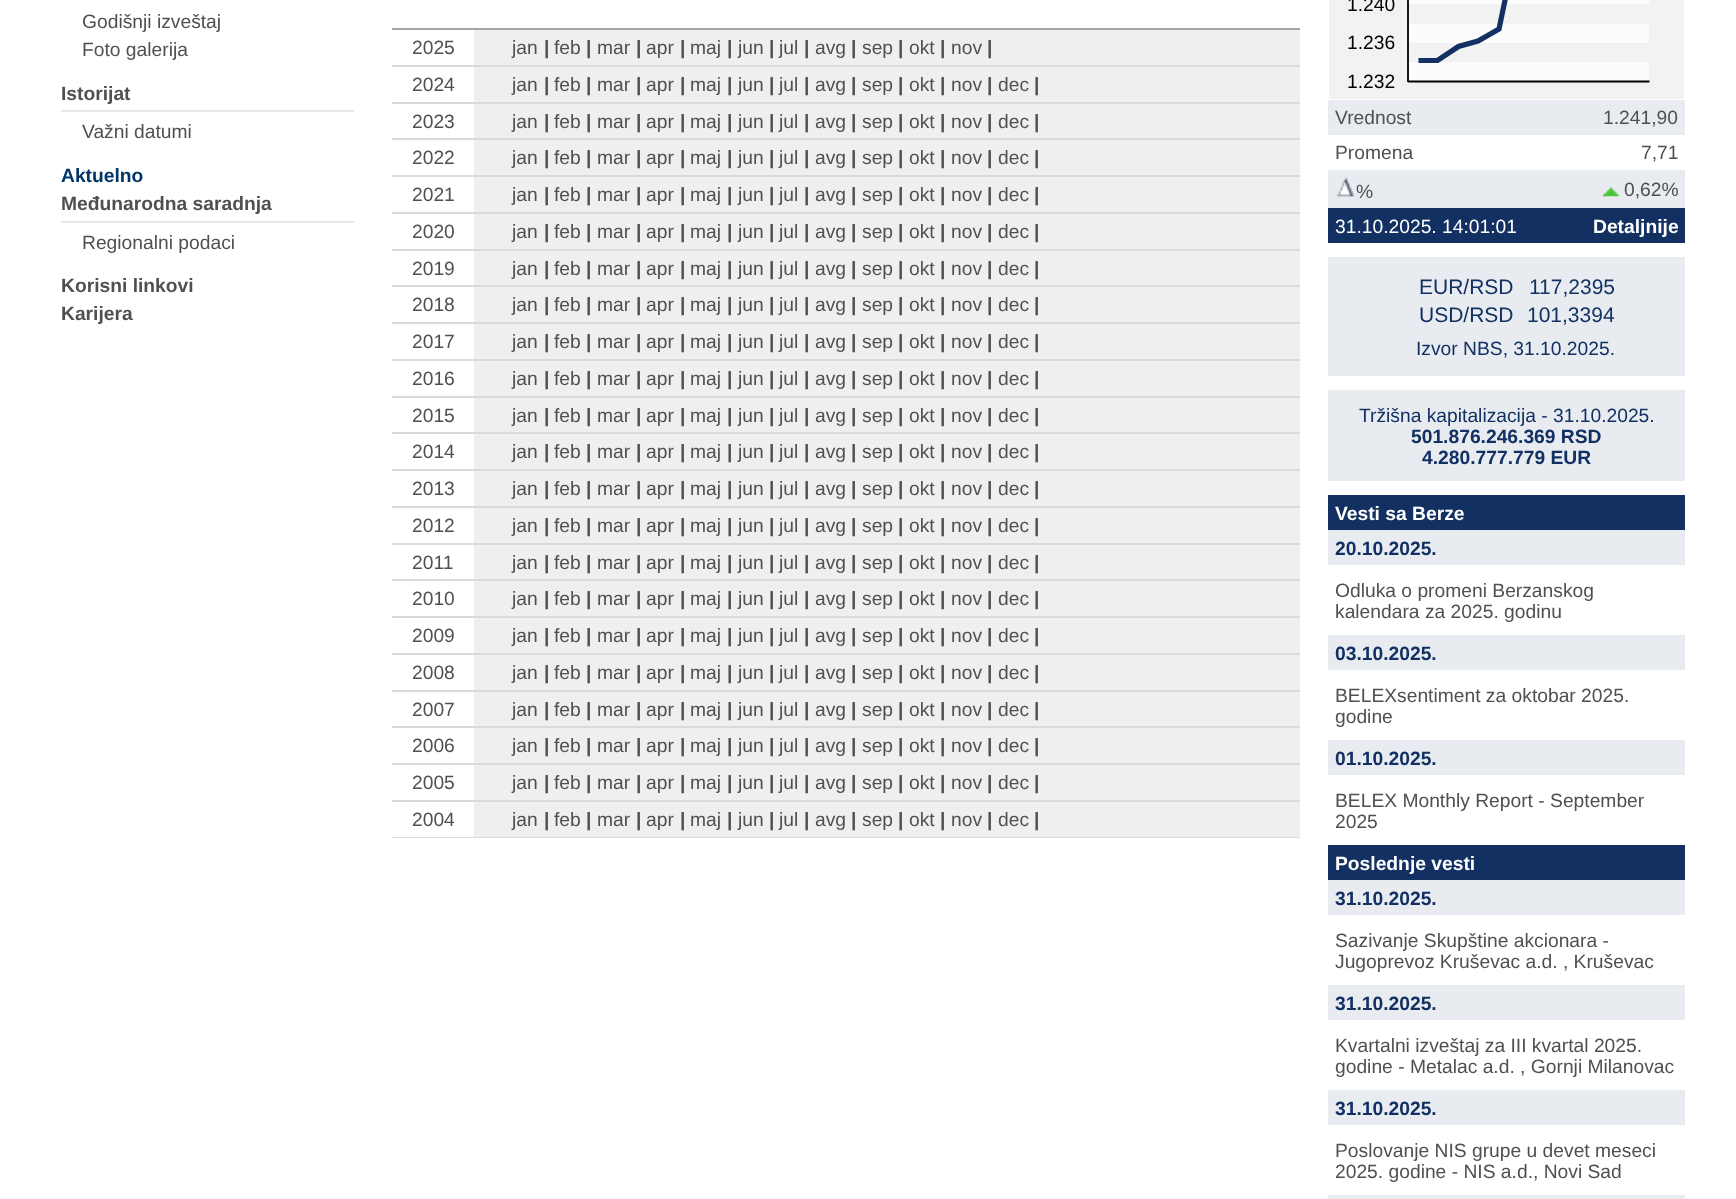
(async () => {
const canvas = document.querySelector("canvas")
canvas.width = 1736
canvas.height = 1199
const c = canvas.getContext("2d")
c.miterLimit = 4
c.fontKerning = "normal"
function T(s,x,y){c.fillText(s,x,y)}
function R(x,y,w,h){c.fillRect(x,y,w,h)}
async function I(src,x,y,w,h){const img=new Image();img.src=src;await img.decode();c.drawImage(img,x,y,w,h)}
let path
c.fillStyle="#fff"
R(0,0,1736,1199)
c.font="19.25px Liberation Sans"
c.fillStyle="#505050"
T("Godišnji izveštaj",82,28)
T("Foto galerija",82,56)
c.font="bold 19.25px Liberation Sans"
T("Istorijat",61,100)
c.fillStyle="#e8e8e8"
R(61,110,293,2)
c.font="19.25px Liberation Sans"
c.fillStyle="#505050"
T("Važni datumi",82,138)
c.font="bold 19.25px Liberation Sans"
c.fillStyle="#003569"
T("Aktuelno",61,182)
c.fillStyle="#505050"
T("Međunarodna saradnja",61,210)
c.fillStyle="#e8e8e8"
R(61,221,293,2)
c.font="19.25px Liberation Sans"
c.fillStyle="#505050"
T("Regionalni podaci",82,249)
c.font="bold 19.25px Liberation Sans"
T("Korisni linkovi",61,292)
T("Karijera",61,320)
c.fillStyle="#a5a5a5"
R(392,28,908,2)
c.font="19.25px Liberation Sans"
c.fillStyle="#505050"
T("2025",412,54)
c.fillStyle="#efefef"
R(474,30,826,35)
c.fillStyle="#dadada"
R(392,65,908,2)
c.fillStyle="#505050"
T("jan",512,54)
c.font="bold 19.25px Liberation Sans"
T("|",544,54)
c.font="19.25px Liberation Sans"
T("feb",554,54)
c.font="bold 19.25px Liberation Sans"
T("|",586,54)
c.font="19.25px Liberation Sans"
T("mar",597,54)
c.font="bold 19.25px Liberation Sans"
T("|",636,54)
c.font="19.25px Liberation Sans"
T("apr",646,54)
c.font="bold 19.25px Liberation Sans"
T("|",680,54)
c.font="19.25px Liberation Sans"
T("maj",690,54)
c.font="bold 19.25px Liberation Sans"
T("|",727,54)
c.font="19.25px Liberation Sans"
T("jun",738,54)
c.font="bold 19.25px Liberation Sans"
T("|",769,54)
c.font="19.25px Liberation Sans"
T("jul",779,54)
c.font="bold 19.25px Liberation Sans"
T("|",804,54)
c.font="19.25px Liberation Sans"
T("avg",815,54)
c.font="bold 19.25px Liberation Sans"
T("|",851,54)
c.font="19.25px Liberation Sans"
T("sep",862,54)
c.font="bold 19.25px Liberation Sans"
T("|",898,54)
c.font="19.25px Liberation Sans"
T("okt",909,54)
c.font="bold 19.25px Liberation Sans"
T("|",940,54)
c.font="19.25px Liberation Sans"
T("nov",951,54)
c.font="bold 19.25px Liberation Sans"
T("|",987,54)
c.font="19.25px Liberation Sans"
T("2024",412,91)
c.fillStyle="#efefef"
R(474,67,826,35)
c.fillStyle="#dadada"
R(392,102,908,2)
c.fillStyle="#505050"
T("jan",512,91)
c.font="bold 19.25px Liberation Sans"
T("|",544,91)
c.font="19.25px Liberation Sans"
T("feb",554,91)
c.font="bold 19.25px Liberation Sans"
T("|",586,91)
c.font="19.25px Liberation Sans"
T("mar",597,91)
c.font="bold 19.25px Liberation Sans"
T("|",636,91)
c.font="19.25px Liberation Sans"
T("apr",646,91)
c.font="bold 19.25px Liberation Sans"
T("|",680,91)
c.font="19.25px Liberation Sans"
T("maj",690,91)
c.font="bold 19.25px Liberation Sans"
T("|",727,91)
c.font="19.25px Liberation Sans"
T("jun",738,91)
c.font="bold 19.25px Liberation Sans"
T("|",769,91)
c.font="19.25px Liberation Sans"
T("jul",779,91)
c.font="bold 19.25px Liberation Sans"
T("|",804,91)
c.font="19.25px Liberation Sans"
T("avg",815,91)
c.font="bold 19.25px Liberation Sans"
T("|",851,91)
c.font="19.25px Liberation Sans"
T("sep",862,91)
c.font="bold 19.25px Liberation Sans"
T("|",898,91)
c.font="19.25px Liberation Sans"
T("okt",909,91)
c.font="bold 19.25px Liberation Sans"
T("|",940,91)
c.font="19.25px Liberation Sans"
T("nov",951,91)
c.font="bold 19.25px Liberation Sans"
T("|",987,91)
c.font="19.25px Liberation Sans"
T("dec",998,91)
c.font="bold 19.25px Liberation Sans"
T("|",1034,91)
c.font="19.25px Liberation Sans"
T("2023",412,128)
c.fillStyle="#efefef"
R(474,104,826,34)
c.fillStyle="#dadada"
R(392,138,908,2)
c.fillStyle="#505050"
T("jan",512,128)
c.font="bold 19.25px Liberation Sans"
T("|",544,128)
c.font="19.25px Liberation Sans"
T("feb",554,128)
c.font="bold 19.25px Liberation Sans"
T("|",586,128)
c.font="19.25px Liberation Sans"
T("mar",597,128)
c.font="bold 19.25px Liberation Sans"
T("|",636,128)
c.font="19.25px Liberation Sans"
T("apr",646,128)
c.font="bold 19.25px Liberation Sans"
T("|",680,128)
c.font="19.25px Liberation Sans"
T("maj",690,128)
c.font="bold 19.25px Liberation Sans"
T("|",727,128)
c.font="19.25px Liberation Sans"
T("jun",738,128)
c.font="bold 19.25px Liberation Sans"
T("|",769,128)
c.font="19.25px Liberation Sans"
T("jul",779,128)
c.font="bold 19.25px Liberation Sans"
T("|",804,128)
c.font="19.25px Liberation Sans"
T("avg",815,128)
c.font="bold 19.25px Liberation Sans"
T("|",851,128)
c.font="19.25px Liberation Sans"
T("sep",862,128)
c.font="bold 19.25px Liberation Sans"
T("|",898,128)
c.font="19.25px Liberation Sans"
T("okt",909,128)
c.font="bold 19.25px Liberation Sans"
T("|",940,128)
c.font="19.25px Liberation Sans"
T("nov",951,128)
c.font="bold 19.25px Liberation Sans"
T("|",987,128)
c.font="19.25px Liberation Sans"
T("dec",998,128)
c.font="bold 19.25px Liberation Sans"
T("|",1034,128)
c.font="19.25px Liberation Sans"
T("2022",412,164)
c.fillStyle="#efefef"
R(474,140,826,35)
c.fillStyle="#dadada"
R(392,175,908,2)
c.fillStyle="#505050"
T("jan",512,164)
c.font="bold 19.25px Liberation Sans"
T("|",544,164)
c.font="19.25px Liberation Sans"
T("feb",554,164)
c.font="bold 19.25px Liberation Sans"
T("|",586,164)
c.font="19.25px Liberation Sans"
T("mar",597,164)
c.font="bold 19.25px Liberation Sans"
T("|",636,164)
c.font="19.25px Liberation Sans"
T("apr",646,164)
c.font="bold 19.25px Liberation Sans"
T("|",680,164)
c.font="19.25px Liberation Sans"
T("maj",690,164)
c.font="bold 19.25px Liberation Sans"
T("|",727,164)
c.font="19.25px Liberation Sans"
T("jun",738,164)
c.font="bold 19.25px Liberation Sans"
T("|",769,164)
c.font="19.25px Liberation Sans"
T("jul",779,164)
c.font="bold 19.25px Liberation Sans"
T("|",804,164)
c.font="19.25px Liberation Sans"
T("avg",815,164)
c.font="bold 19.25px Liberation Sans"
T("|",851,164)
c.font="19.25px Liberation Sans"
T("sep",862,164)
c.font="bold 19.25px Liberation Sans"
T("|",898,164)
c.font="19.25px Liberation Sans"
T("okt",909,164)
c.font="bold 19.25px Liberation Sans"
T("|",940,164)
c.font="19.25px Liberation Sans"
T("nov",951,164)
c.font="bold 19.25px Liberation Sans"
T("|",987,164)
c.font="19.25px Liberation Sans"
T("dec",998,164)
c.font="bold 19.25px Liberation Sans"
T("|",1034,164)
c.font="19.25px Liberation Sans"
T("2021",412,201)
c.fillStyle="#efefef"
R(474,177,826,35)
c.fillStyle="#dadada"
R(392,212,908,2)
c.fillStyle="#505050"
T("jan",512,201)
c.font="bold 19.25px Liberation Sans"
T("|",544,201)
c.font="19.25px Liberation Sans"
T("feb",554,201)
c.font="bold 19.25px Liberation Sans"
T("|",586,201)
c.font="19.25px Liberation Sans"
T("mar",597,201)
c.font="bold 19.25px Liberation Sans"
T("|",636,201)
c.font="19.25px Liberation Sans"
T("apr",646,201)
c.font="bold 19.25px Liberation Sans"
T("|",680,201)
c.font="19.25px Liberation Sans"
T("maj",690,201)
c.font="bold 19.25px Liberation Sans"
T("|",727,201)
c.font="19.25px Liberation Sans"
T("jun",738,201)
c.font="bold 19.25px Liberation Sans"
T("|",769,201)
c.font="19.25px Liberation Sans"
T("jul",779,201)
c.font="bold 19.25px Liberation Sans"
T("|",804,201)
c.font="19.25px Liberation Sans"
T("avg",815,201)
c.font="bold 19.25px Liberation Sans"
T("|",851,201)
c.font="19.25px Liberation Sans"
T("sep",862,201)
c.font="bold 19.25px Liberation Sans"
T("|",898,201)
c.font="19.25px Liberation Sans"
T("okt",909,201)
c.font="bold 19.25px Liberation Sans"
T("|",940,201)
c.font="19.25px Liberation Sans"
T("nov",951,201)
c.font="bold 19.25px Liberation Sans"
T("|",987,201)
c.font="19.25px Liberation Sans"
T("dec",998,201)
c.font="bold 19.25px Liberation Sans"
T("|",1034,201)
c.font="19.25px Liberation Sans"
T("2020",412,238)
c.fillStyle="#efefef"
R(474,214,826,35)
c.fillStyle="#dadada"
R(392,249,908,2)
c.fillStyle="#505050"
T("jan",512,238)
c.font="bold 19.25px Liberation Sans"
T("|",544,238)
c.font="19.25px Liberation Sans"
T("feb",554,238)
c.font="bold 19.25px Liberation Sans"
T("|",586,238)
c.font="19.25px Liberation Sans"
T("mar",597,238)
c.font="bold 19.25px Liberation Sans"
T("|",636,238)
c.font="19.25px Liberation Sans"
T("apr",646,238)
c.font="bold 19.25px Liberation Sans"
T("|",680,238)
c.font="19.25px Liberation Sans"
T("maj",690,238)
c.font="bold 19.25px Liberation Sans"
T("|",727,238)
c.font="19.25px Liberation Sans"
T("jun",738,238)
c.font="bold 19.25px Liberation Sans"
T("|",769,238)
c.font="19.25px Liberation Sans"
T("jul",779,238)
c.font="bold 19.25px Liberation Sans"
T("|",804,238)
c.font="19.25px Liberation Sans"
T("avg",815,238)
c.font="bold 19.25px Liberation Sans"
T("|",851,238)
c.font="19.25px Liberation Sans"
T("sep",862,238)
c.font="bold 19.25px Liberation Sans"
T("|",898,238)
c.font="19.25px Liberation Sans"
T("okt",909,238)
c.font="bold 19.25px Liberation Sans"
T("|",940,238)
c.font="19.25px Liberation Sans"
T("nov",951,238)
c.font="bold 19.25px Liberation Sans"
T("|",987,238)
c.font="19.25px Liberation Sans"
T("dec",998,238)
c.font="bold 19.25px Liberation Sans"
T("|",1034,238)
c.font="19.25px Liberation Sans"
T("2019",412,275)
c.fillStyle="#efefef"
R(474,251,826,34)
c.fillStyle="#dadada"
R(392,285,908,2)
c.fillStyle="#505050"
T("jan",512,275)
c.font="bold 19.25px Liberation Sans"
T("|",544,275)
c.font="19.25px Liberation Sans"
T("feb",554,275)
c.font="bold 19.25px Liberation Sans"
T("|",586,275)
c.font="19.25px Liberation Sans"
T("mar",597,275)
c.font="bold 19.25px Liberation Sans"
T("|",636,275)
c.font="19.25px Liberation Sans"
T("apr",646,275)
c.font="bold 19.25px Liberation Sans"
T("|",680,275)
c.font="19.25px Liberation Sans"
T("maj",690,275)
c.font="bold 19.25px Liberation Sans"
T("|",727,275)
c.font="19.25px Liberation Sans"
T("jun",738,275)
c.font="bold 19.25px Liberation Sans"
T("|",769,275)
c.font="19.25px Liberation Sans"
T("jul",779,275)
c.font="bold 19.25px Liberation Sans"
T("|",804,275)
c.font="19.25px Liberation Sans"
T("avg",815,275)
c.font="bold 19.25px Liberation Sans"
T("|",851,275)
c.font="19.25px Liberation Sans"
T("sep",862,275)
c.font="bold 19.25px Liberation Sans"
T("|",898,275)
c.font="19.25px Liberation Sans"
T("okt",909,275)
c.font="bold 19.25px Liberation Sans"
T("|",940,275)
c.font="19.25px Liberation Sans"
T("nov",951,275)
c.font="bold 19.25px Liberation Sans"
T("|",987,275)
c.font="19.25px Liberation Sans"
T("dec",998,275)
c.font="bold 19.25px Liberation Sans"
T("|",1034,275)
c.font="19.25px Liberation Sans"
T("2018",412,311)
c.fillStyle="#efefef"
R(474,287,826,35)
c.fillStyle="#dadada"
R(392,322,908,2)
c.fillStyle="#505050"
T("jan",512,311)
c.font="bold 19.25px Liberation Sans"
T("|",544,311)
c.font="19.25px Liberation Sans"
T("feb",554,311)
c.font="bold 19.25px Liberation Sans"
T("|",586,311)
c.font="19.25px Liberation Sans"
T("mar",597,311)
c.font="bold 19.25px Liberation Sans"
T("|",636,311)
c.font="19.25px Liberation Sans"
T("apr",646,311)
c.font="bold 19.25px Liberation Sans"
T("|",680,311)
c.font="19.25px Liberation Sans"
T("maj",690,311)
c.font="bold 19.25px Liberation Sans"
T("|",727,311)
c.font="19.25px Liberation Sans"
T("jun",738,311)
c.font="bold 19.25px Liberation Sans"
T("|",769,311)
c.font="19.25px Liberation Sans"
T("jul",779,311)
c.font="bold 19.25px Liberation Sans"
T("|",804,311)
c.font="19.25px Liberation Sans"
T("avg",815,311)
c.font="bold 19.25px Liberation Sans"
T("|",851,311)
c.font="19.25px Liberation Sans"
T("sep",862,311)
c.font="bold 19.25px Liberation Sans"
T("|",898,311)
c.font="19.25px Liberation Sans"
T("okt",909,311)
c.font="bold 19.25px Liberation Sans"
T("|",940,311)
c.font="19.25px Liberation Sans"
T("nov",951,311)
c.font="bold 19.25px Liberation Sans"
T("|",987,311)
c.font="19.25px Liberation Sans"
T("dec",998,311)
c.font="bold 19.25px Liberation Sans"
T("|",1034,311)
c.font="19.25px Liberation Sans"
T("2017",412,348)
c.fillStyle="#efefef"
R(474,324,826,35)
c.fillStyle="#dadada"
R(392,359,908,2)
c.fillStyle="#505050"
T("jan",512,348)
c.font="bold 19.25px Liberation Sans"
T("|",544,348)
c.font="19.25px Liberation Sans"
T("feb",554,348)
c.font="bold 19.25px Liberation Sans"
T("|",586,348)
c.font="19.25px Liberation Sans"
T("mar",597,348)
c.font="bold 19.25px Liberation Sans"
T("|",636,348)
c.font="19.25px Liberation Sans"
T("apr",646,348)
c.font="bold 19.25px Liberation Sans"
T("|",680,348)
c.font="19.25px Liberation Sans"
T("maj",690,348)
c.font="bold 19.25px Liberation Sans"
T("|",727,348)
c.font="19.25px Liberation Sans"
T("jun",738,348)
c.font="bold 19.25px Liberation Sans"
T("|",769,348)
c.font="19.25px Liberation Sans"
T("jul",779,348)
c.font="bold 19.25px Liberation Sans"
T("|",804,348)
c.font="19.25px Liberation Sans"
T("avg",815,348)
c.font="bold 19.25px Liberation Sans"
T("|",851,348)
c.font="19.25px Liberation Sans"
T("sep",862,348)
c.font="bold 19.25px Liberation Sans"
T("|",898,348)
c.font="19.25px Liberation Sans"
T("okt",909,348)
c.font="bold 19.25px Liberation Sans"
T("|",940,348)
c.font="19.25px Liberation Sans"
T("nov",951,348)
c.font="bold 19.25px Liberation Sans"
T("|",987,348)
c.font="19.25px Liberation Sans"
T("dec",998,348)
c.font="bold 19.25px Liberation Sans"
T("|",1034,348)
c.font="19.25px Liberation Sans"
T("2016",412,385)
c.fillStyle="#efefef"
R(474,361,826,35)
c.fillStyle="#dadada"
R(392,396,908,2)
c.fillStyle="#505050"
T("jan",512,385)
c.font="bold 19.25px Liberation Sans"
T("|",544,385)
c.font="19.25px Liberation Sans"
T("feb",554,385)
c.font="bold 19.25px Liberation Sans"
T("|",586,385)
c.font="19.25px Liberation Sans"
T("mar",597,385)
c.font="bold 19.25px Liberation Sans"
T("|",636,385)
c.font="19.25px Liberation Sans"
T("apr",646,385)
c.font="bold 19.25px Liberation Sans"
T("|",680,385)
c.font="19.25px Liberation Sans"
T("maj",690,385)
c.font="bold 19.25px Liberation Sans"
T("|",727,385)
c.font="19.25px Liberation Sans"
T("jun",738,385)
c.font="bold 19.25px Liberation Sans"
T("|",769,385)
c.font="19.25px Liberation Sans"
T("jul",779,385)
c.font="bold 19.25px Liberation Sans"
T("|",804,385)
c.font="19.25px Liberation Sans"
T("avg",815,385)
c.font="bold 19.25px Liberation Sans"
T("|",851,385)
c.font="19.25px Liberation Sans"
T("sep",862,385)
c.font="bold 19.25px Liberation Sans"
T("|",898,385)
c.font="19.25px Liberation Sans"
T("okt",909,385)
c.font="bold 19.25px Liberation Sans"
T("|",940,385)
c.font="19.25px Liberation Sans"
T("nov",951,385)
c.font="bold 19.25px Liberation Sans"
T("|",987,385)
c.font="19.25px Liberation Sans"
T("dec",998,385)
c.font="bold 19.25px Liberation Sans"
T("|",1034,385)
c.font="19.25px Liberation Sans"
T("2015",412,422)
c.fillStyle="#efefef"
R(474,398,826,34)
c.fillStyle="#dadada"
R(392,432,908,2)
c.fillStyle="#505050"
T("jan",512,422)
c.font="bold 19.25px Liberation Sans"
T("|",544,422)
c.font="19.25px Liberation Sans"
T("feb",554,422)
c.font="bold 19.25px Liberation Sans"
T("|",586,422)
c.font="19.25px Liberation Sans"
T("mar",597,422)
c.font="bold 19.25px Liberation Sans"
T("|",636,422)
c.font="19.25px Liberation Sans"
T("apr",646,422)
c.font="bold 19.25px Liberation Sans"
T("|",680,422)
c.font="19.25px Liberation Sans"
T("maj",690,422)
c.font="bold 19.25px Liberation Sans"
T("|",727,422)
c.font="19.25px Liberation Sans"
T("jun",738,422)
c.font="bold 19.25px Liberation Sans"
T("|",769,422)
c.font="19.25px Liberation Sans"
T("jul",779,422)
c.font="bold 19.25px Liberation Sans"
T("|",804,422)
c.font="19.25px Liberation Sans"
T("avg",815,422)
c.font="bold 19.25px Liberation Sans"
T("|",851,422)
c.font="19.25px Liberation Sans"
T("sep",862,422)
c.font="bold 19.25px Liberation Sans"
T("|",898,422)
c.font="19.25px Liberation Sans"
T("okt",909,422)
c.font="bold 19.25px Liberation Sans"
T("|",940,422)
c.font="19.25px Liberation Sans"
T("nov",951,422)
c.font="bold 19.25px Liberation Sans"
T("|",987,422)
c.font="19.25px Liberation Sans"
T("dec",998,422)
c.font="bold 19.25px Liberation Sans"
T("|",1034,422)
c.font="19.25px Liberation Sans"
T("2014",412,458)
c.fillStyle="#efefef"
R(474,434,826,35)
c.fillStyle="#dadada"
R(392,469,908,2)
c.fillStyle="#505050"
T("jan",512,458)
c.font="bold 19.25px Liberation Sans"
T("|",544,458)
c.font="19.25px Liberation Sans"
T("feb",554,458)
c.font="bold 19.25px Liberation Sans"
T("|",586,458)
c.font="19.25px Liberation Sans"
T("mar",597,458)
c.font="bold 19.25px Liberation Sans"
T("|",636,458)
c.font="19.25px Liberation Sans"
T("apr",646,458)
c.font="bold 19.25px Liberation Sans"
T("|",680,458)
c.font="19.25px Liberation Sans"
T("maj",690,458)
c.font="bold 19.25px Liberation Sans"
T("|",727,458)
c.font="19.25px Liberation Sans"
T("jun",738,458)
c.font="bold 19.25px Liberation Sans"
T("|",769,458)
c.font="19.25px Liberation Sans"
T("jul",779,458)
c.font="bold 19.25px Liberation Sans"
T("|",804,458)
c.font="19.25px Liberation Sans"
T("avg",815,458)
c.font="bold 19.25px Liberation Sans"
T("|",851,458)
c.font="19.25px Liberation Sans"
T("sep",862,458)
c.font="bold 19.25px Liberation Sans"
T("|",898,458)
c.font="19.25px Liberation Sans"
T("okt",909,458)
c.font="bold 19.25px Liberation Sans"
T("|",940,458)
c.font="19.25px Liberation Sans"
T("nov",951,458)
c.font="bold 19.25px Liberation Sans"
T("|",987,458)
c.font="19.25px Liberation Sans"
T("dec",998,458)
c.font="bold 19.25px Liberation Sans"
T("|",1034,458)
c.font="19.25px Liberation Sans"
T("2013",412,495)
c.fillStyle="#efefef"
R(474,471,826,35)
c.fillStyle="#dadada"
R(392,506,908,2)
c.fillStyle="#505050"
T("jan",512,495)
c.font="bold 19.25px Liberation Sans"
T("|",544,495)
c.font="19.25px Liberation Sans"
T("feb",554,495)
c.font="bold 19.25px Liberation Sans"
T("|",586,495)
c.font="19.25px Liberation Sans"
T("mar",597,495)
c.font="bold 19.25px Liberation Sans"
T("|",636,495)
c.font="19.25px Liberation Sans"
T("apr",646,495)
c.font="bold 19.25px Liberation Sans"
T("|",680,495)
c.font="19.25px Liberation Sans"
T("maj",690,495)
c.font="bold 19.25px Liberation Sans"
T("|",727,495)
c.font="19.25px Liberation Sans"
T("jun",738,495)
c.font="bold 19.25px Liberation Sans"
T("|",769,495)
c.font="19.25px Liberation Sans"
T("jul",779,495)
c.font="bold 19.25px Liberation Sans"
T("|",804,495)
c.font="19.25px Liberation Sans"
T("avg",815,495)
c.font="bold 19.25px Liberation Sans"
T("|",851,495)
c.font="19.25px Liberation Sans"
T("sep",862,495)
c.font="bold 19.25px Liberation Sans"
T("|",898,495)
c.font="19.25px Liberation Sans"
T("okt",909,495)
c.font="bold 19.25px Liberation Sans"
T("|",940,495)
c.font="19.25px Liberation Sans"
T("nov",951,495)
c.font="bold 19.25px Liberation Sans"
T("|",987,495)
c.font="19.25px Liberation Sans"
T("dec",998,495)
c.font="bold 19.25px Liberation Sans"
T("|",1034,495)
c.font="19.25px Liberation Sans"
T("2012",412,532)
c.fillStyle="#efefef"
R(474,508,826,35)
c.fillStyle="#dadada"
R(392,543,908,2)
c.fillStyle="#505050"
T("jan",512,532)
c.font="bold 19.25px Liberation Sans"
T("|",544,532)
c.font="19.25px Liberation Sans"
T("feb",554,532)
c.font="bold 19.25px Liberation Sans"
T("|",586,532)
c.font="19.25px Liberation Sans"
T("mar",597,532)
c.font="bold 19.25px Liberation Sans"
T("|",636,532)
c.font="19.25px Liberation Sans"
T("apr",646,532)
c.font="bold 19.25px Liberation Sans"
T("|",680,532)
c.font="19.25px Liberation Sans"
T("maj",690,532)
c.font="bold 19.25px Liberation Sans"
T("|",727,532)
c.font="19.25px Liberation Sans"
T("jun",738,532)
c.font="bold 19.25px Liberation Sans"
T("|",769,532)
c.font="19.25px Liberation Sans"
T("jul",779,532)
c.font="bold 19.25px Liberation Sans"
T("|",804,532)
c.font="19.25px Liberation Sans"
T("avg",815,532)
c.font="bold 19.25px Liberation Sans"
T("|",851,532)
c.font="19.25px Liberation Sans"
T("sep",862,532)
c.font="bold 19.25px Liberation Sans"
T("|",898,532)
c.font="19.25px Liberation Sans"
T("okt",909,532)
c.font="bold 19.25px Liberation Sans"
T("|",940,532)
c.font="19.25px Liberation Sans"
T("nov",951,532)
c.font="bold 19.25px Liberation Sans"
T("|",987,532)
c.font="19.25px Liberation Sans"
T("dec",998,532)
c.font="bold 19.25px Liberation Sans"
T("|",1034,532)
c.font="19.25px Liberation Sans"
T("2011",412,569)
c.fillStyle="#efefef"
R(474,545,826,34)
c.fillStyle="#dadada"
R(392,579,908,2)
c.fillStyle="#505050"
T("jan",512,569)
c.font="bold 19.25px Liberation Sans"
T("|",544,569)
c.font="19.25px Liberation Sans"
T("feb",554,569)
c.font="bold 19.25px Liberation Sans"
T("|",586,569)
c.font="19.25px Liberation Sans"
T("mar",597,569)
c.font="bold 19.25px Liberation Sans"
T("|",636,569)
c.font="19.25px Liberation Sans"
T("apr",646,569)
c.font="bold 19.25px Liberation Sans"
T("|",680,569)
c.font="19.25px Liberation Sans"
T("maj",690,569)
c.font="bold 19.25px Liberation Sans"
T("|",727,569)
c.font="19.25px Liberation Sans"
T("jun",738,569)
c.font="bold 19.25px Liberation Sans"
T("|",769,569)
c.font="19.25px Liberation Sans"
T("jul",779,569)
c.font="bold 19.25px Liberation Sans"
T("|",804,569)
c.font="19.25px Liberation Sans"
T("avg",815,569)
c.font="bold 19.25px Liberation Sans"
T("|",851,569)
c.font="19.25px Liberation Sans"
T("sep",862,569)
c.font="bold 19.25px Liberation Sans"
T("|",898,569)
c.font="19.25px Liberation Sans"
T("okt",909,569)
c.font="bold 19.25px Liberation Sans"
T("|",940,569)
c.font="19.25px Liberation Sans"
T("nov",951,569)
c.font="bold 19.25px Liberation Sans"
T("|",987,569)
c.font="19.25px Liberation Sans"
T("dec",998,569)
c.font="bold 19.25px Liberation Sans"
T("|",1034,569)
c.font="19.25px Liberation Sans"
T("2010",412,605)
c.fillStyle="#efefef"
R(474,581,826,35)
c.fillStyle="#dadada"
R(392,616,908,2)
c.fillStyle="#505050"
T("jan",512,605)
c.font="bold 19.25px Liberation Sans"
T("|",544,605)
c.font="19.25px Liberation Sans"
T("feb",554,605)
c.font="bold 19.25px Liberation Sans"
T("|",586,605)
c.font="19.25px Liberation Sans"
T("mar",597,605)
c.font="bold 19.25px Liberation Sans"
T("|",636,605)
c.font="19.25px Liberation Sans"
T("apr",646,605)
c.font="bold 19.25px Liberation Sans"
T("|",680,605)
c.font="19.25px Liberation Sans"
T("maj",690,605)
c.font="bold 19.25px Liberation Sans"
T("|",727,605)
c.font="19.25px Liberation Sans"
T("jun",738,605)
c.font="bold 19.25px Liberation Sans"
T("|",769,605)
c.font="19.25px Liberation Sans"
T("jul",779,605)
c.font="bold 19.25px Liberation Sans"
T("|",804,605)
c.font="19.25px Liberation Sans"
T("avg",815,605)
c.font="bold 19.25px Liberation Sans"
T("|",851,605)
c.font="19.25px Liberation Sans"
T("sep",862,605)
c.font="bold 19.25px Liberation Sans"
T("|",898,605)
c.font="19.25px Liberation Sans"
T("okt",909,605)
c.font="bold 19.25px Liberation Sans"
T("|",940,605)
c.font="19.25px Liberation Sans"
T("nov",951,605)
c.font="bold 19.25px Liberation Sans"
T("|",987,605)
c.font="19.25px Liberation Sans"
T("dec",998,605)
c.font="bold 19.25px Liberation Sans"
T("|",1034,605)
c.font="19.25px Liberation Sans"
T("2009",412,642)
c.fillStyle="#efefef"
R(474,618,826,35)
c.fillStyle="#dadada"
R(392,653,908,2)
c.fillStyle="#505050"
T("jan",512,642)
c.font="bold 19.25px Liberation Sans"
T("|",544,642)
c.font="19.25px Liberation Sans"
T("feb",554,642)
c.font="bold 19.25px Liberation Sans"
T("|",586,642)
c.font="19.25px Liberation Sans"
T("mar",597,642)
c.font="bold 19.25px Liberation Sans"
T("|",636,642)
c.font="19.25px Liberation Sans"
T("apr",646,642)
c.font="bold 19.25px Liberation Sans"
T("|",680,642)
c.font="19.25px Liberation Sans"
T("maj",690,642)
c.font="bold 19.25px Liberation Sans"
T("|",727,642)
c.font="19.25px Liberation Sans"
T("jun",738,642)
c.font="bold 19.25px Liberation Sans"
T("|",769,642)
c.font="19.25px Liberation Sans"
T("jul",779,642)
c.font="bold 19.25px Liberation Sans"
T("|",804,642)
c.font="19.25px Liberation Sans"
T("avg",815,642)
c.font="bold 19.25px Liberation Sans"
T("|",851,642)
c.font="19.25px Liberation Sans"
T("sep",862,642)
c.font="bold 19.25px Liberation Sans"
T("|",898,642)
c.font="19.25px Liberation Sans"
T("okt",909,642)
c.font="bold 19.25px Liberation Sans"
T("|",940,642)
c.font="19.25px Liberation Sans"
T("nov",951,642)
c.font="bold 19.25px Liberation Sans"
T("|",987,642)
c.font="19.25px Liberation Sans"
T("dec",998,642)
c.font="bold 19.25px Liberation Sans"
T("|",1034,642)
c.font="19.25px Liberation Sans"
T("2008",412,679)
c.fillStyle="#efefef"
R(474,655,826,35)
c.fillStyle="#dadada"
R(392,690,908,2)
c.fillStyle="#505050"
T("jan",512,679)
c.font="bold 19.25px Liberation Sans"
T("|",544,679)
c.font="19.25px Liberation Sans"
T("feb",554,679)
c.font="bold 19.25px Liberation Sans"
T("|",586,679)
c.font="19.25px Liberation Sans"
T("mar",597,679)
c.font="bold 19.25px Liberation Sans"
T("|",636,679)
c.font="19.25px Liberation Sans"
T("apr",646,679)
c.font="bold 19.25px Liberation Sans"
T("|",680,679)
c.font="19.25px Liberation Sans"
T("maj",690,679)
c.font="bold 19.25px Liberation Sans"
T("|",727,679)
c.font="19.25px Liberation Sans"
T("jun",738,679)
c.font="bold 19.25px Liberation Sans"
T("|",769,679)
c.font="19.25px Liberation Sans"
T("jul",779,679)
c.font="bold 19.25px Liberation Sans"
T("|",804,679)
c.font="19.25px Liberation Sans"
T("avg",815,679)
c.font="bold 19.25px Liberation Sans"
T("|",851,679)
c.font="19.25px Liberation Sans"
T("sep",862,679)
c.font="bold 19.25px Liberation Sans"
T("|",898,679)
c.font="19.25px Liberation Sans"
T("okt",909,679)
c.font="bold 19.25px Liberation Sans"
T("|",940,679)
c.font="19.25px Liberation Sans"
T("nov",951,679)
c.font="bold 19.25px Liberation Sans"
T("|",987,679)
c.font="19.25px Liberation Sans"
T("dec",998,679)
c.font="bold 19.25px Liberation Sans"
T("|",1034,679)
c.font="19.25px Liberation Sans"
T("2007",412,716)
c.fillStyle="#efefef"
R(474,692,826,34)
c.fillStyle="#dadada"
R(392,726,908,2)
c.fillStyle="#505050"
T("jan",512,716)
c.font="bold 19.25px Liberation Sans"
T("|",544,716)
c.font="19.25px Liberation Sans"
T("feb",554,716)
c.font="bold 19.25px Liberation Sans"
T("|",586,716)
c.font="19.25px Liberation Sans"
T("mar",597,716)
c.font="bold 19.25px Liberation Sans"
T("|",636,716)
c.font="19.25px Liberation Sans"
T("apr",646,716)
c.font="bold 19.25px Liberation Sans"
T("|",680,716)
c.font="19.25px Liberation Sans"
T("maj",690,716)
c.font="bold 19.25px Liberation Sans"
T("|",727,716)
c.font="19.25px Liberation Sans"
T("jun",738,716)
c.font="bold 19.25px Liberation Sans"
T("|",769,716)
c.font="19.25px Liberation Sans"
T("jul",779,716)
c.font="bold 19.25px Liberation Sans"
T("|",804,716)
c.font="19.25px Liberation Sans"
T("avg",815,716)
c.font="bold 19.25px Liberation Sans"
T("|",851,716)
c.font="19.25px Liberation Sans"
T("sep",862,716)
c.font="bold 19.25px Liberation Sans"
T("|",898,716)
c.font="19.25px Liberation Sans"
T("okt",909,716)
c.font="bold 19.25px Liberation Sans"
T("|",940,716)
c.font="19.25px Liberation Sans"
T("nov",951,716)
c.font="bold 19.25px Liberation Sans"
T("|",987,716)
c.font="19.25px Liberation Sans"
T("dec",998,716)
c.font="bold 19.25px Liberation Sans"
T("|",1034,716)
c.font="19.25px Liberation Sans"
T("2006",412,752)
c.fillStyle="#efefef"
R(474,728,826,35)
c.fillStyle="#dadada"
R(392,763,908,2)
c.fillStyle="#505050"
T("jan",512,752)
c.font="bold 19.25px Liberation Sans"
T("|",544,752)
c.font="19.25px Liberation Sans"
T("feb",554,752)
c.font="bold 19.25px Liberation Sans"
T("|",586,752)
c.font="19.25px Liberation Sans"
T("mar",597,752)
c.font="bold 19.25px Liberation Sans"
T("|",636,752)
c.font="19.25px Liberation Sans"
T("apr",646,752)
c.font="bold 19.25px Liberation Sans"
T("|",680,752)
c.font="19.25px Liberation Sans"
T("maj",690,752)
c.font="bold 19.25px Liberation Sans"
T("|",727,752)
c.font="19.25px Liberation Sans"
T("jun",738,752)
c.font="bold 19.25px Liberation Sans"
T("|",769,752)
c.font="19.25px Liberation Sans"
T("jul",779,752)
c.font="bold 19.25px Liberation Sans"
T("|",804,752)
c.font="19.25px Liberation Sans"
T("avg",815,752)
c.font="bold 19.25px Liberation Sans"
T("|",851,752)
c.font="19.25px Liberation Sans"
T("sep",862,752)
c.font="bold 19.25px Liberation Sans"
T("|",898,752)
c.font="19.25px Liberation Sans"
T("okt",909,752)
c.font="bold 19.25px Liberation Sans"
T("|",940,752)
c.font="19.25px Liberation Sans"
T("nov",951,752)
c.font="bold 19.25px Liberation Sans"
T("|",987,752)
c.font="19.25px Liberation Sans"
T("dec",998,752)
c.font="bold 19.25px Liberation Sans"
T("|",1034,752)
c.font="19.25px Liberation Sans"
T("2005",412,789)
c.fillStyle="#efefef"
R(474,765,826,35)
c.fillStyle="#dadada"
R(392,800,908,2)
c.fillStyle="#505050"
T("jan",512,789)
c.font="bold 19.25px Liberation Sans"
T("|",544,789)
c.font="19.25px Liberation Sans"
T("feb",554,789)
c.font="bold 19.25px Liberation Sans"
T("|",586,789)
c.font="19.25px Liberation Sans"
T("mar",597,789)
c.font="bold 19.25px Liberation Sans"
T("|",636,789)
c.font="19.25px Liberation Sans"
T("apr",646,789)
c.font="bold 19.25px Liberation Sans"
T("|",680,789)
c.font="19.25px Liberation Sans"
T("maj",690,789)
c.font="bold 19.25px Liberation Sans"
T("|",727,789)
c.font="19.25px Liberation Sans"
T("jun",738,789)
c.font="bold 19.25px Liberation Sans"
T("|",769,789)
c.font="19.25px Liberation Sans"
T("jul",779,789)
c.font="bold 19.25px Liberation Sans"
T("|",804,789)
c.font="19.25px Liberation Sans"
T("avg",815,789)
c.font="bold 19.25px Liberation Sans"
T("|",851,789)
c.font="19.25px Liberation Sans"
T("sep",862,789)
c.font="bold 19.25px Liberation Sans"
T("|",898,789)
c.font="19.25px Liberation Sans"
T("okt",909,789)
c.font="bold 19.25px Liberation Sans"
T("|",940,789)
c.font="19.25px Liberation Sans"
T("nov",951,789)
c.font="bold 19.25px Liberation Sans"
T("|",987,789)
c.font="19.25px Liberation Sans"
T("dec",998,789)
c.font="bold 19.25px Liberation Sans"
T("|",1034,789)
c.font="19.25px Liberation Sans"
T("2004",412,826)
c.fillStyle="#efefef"
R(474,802,826,35)
c.fillStyle="#dadada"
R(392,837,908,1)
c.fillStyle="#505050"
T("jan",512,826)
c.font="bold 19.25px Liberation Sans"
T("|",544,826)
c.font="19.25px Liberation Sans"
T("feb",554,826)
c.font="bold 19.25px Liberation Sans"
T("|",586,826)
c.font="19.25px Liberation Sans"
T("mar",597,826)
c.font="bold 19.25px Liberation Sans"
T("|",636,826)
c.font="19.25px Liberation Sans"
T("apr",646,826)
c.font="bold 19.25px Liberation Sans"
T("|",680,826)
c.font="19.25px Liberation Sans"
T("maj",690,826)
c.font="bold 19.25px Liberation Sans"
T("|",727,826)
c.font="19.25px Liberation Sans"
T("jun",738,826)
c.font="bold 19.25px Liberation Sans"
T("|",769,826)
c.font="19.25px Liberation Sans"
T("jul",779,826)
c.font="bold 19.25px Liberation Sans"
T("|",804,826)
c.font="19.25px Liberation Sans"
T("avg",815,826)
c.font="bold 19.25px Liberation Sans"
T("|",851,826)
c.font="19.25px Liberation Sans"
T("sep",862,826)
c.font="bold 19.25px Liberation Sans"
T("|",898,826)
c.font="19.25px Liberation Sans"
T("okt",909,826)
c.font="bold 19.25px Liberation Sans"
T("|",940,826)
c.font="19.25px Liberation Sans"
T("nov",951,826)
c.font="bold 19.25px Liberation Sans"
T("|",987,826)
c.font="19.25px Liberation Sans"
T("dec",998,826)
c.font="bold 19.25px Liberation Sans"
T("|",1034,826)
c.fillStyle="#f2f2f2"
R(1329,0,355,99)
c.fillStyle="#fcfcfc"
R(1408,62,241,19)
R(1408,24,241,19)
R(1408,0,241,4)
path = new Path2D("M1418.5 60.5h19l21-14l19.5-5.5l21-12l19-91h21l19.5-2h40l21-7l19.5 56m-232-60h0")
c.strokeStyle="#123062"
c.lineWidth=5.2
c.stroke(path)
path = new Path2D("M1408 81.5h241.5")
c.strokeStyle="#000"
c.lineWidth=1.8
c.stroke(path)
c.fillStyle="#000000e6"
R(1407,0,2,82)
c.font="19.25px Liberation Sans"
c.fillStyle="#000"
T("1.240",1347,11)
T("1.236",1347,49)
T("1.232",1347,88)
c.fillStyle="#e8ecf1"
R(1328,100,357,35)
c.fillStyle="#505050"
T("Vrednost",1335,124)
T("1.241,90",1603,124)
T("Promena",1335,159)
T("7,71",1641,159)
c.fillStyle="#e8ecf1"
R(1328,170,357,38)
await I("1.png",1336,177,19,20)
c.fillStyle="#505050"
T("%",1356,198)
await I("2.png",1603,187,16,10)
T("0,62%",1624,196)
c.fillStyle="#123062"
R(1328,208,357,35)
c.fillStyle="#fff"
T("31.10.2025. 14:01:01",1335,233)
c.font="bold 19.25px Liberation Sans"
T("Detaljnije",1593,233)
c.fillStyle="#e8ecf1"
R(1328,257,357,119)
c.font="21px Liberation Sans"
c.fillStyle="#123062"
T("EUR/RSD",1419,294)
T("117,2395",1529,294)
T("USD/RSD",1419,322)
T("101,3394",1527,322)
c.font="19.25px Liberation Sans"
T("Izvor NBS, 31.10.2025.",1416,355)
c.fillStyle="#e8ecf1"
R(1328,390,357,91)
c.fillStyle="#123062"
T("Tržišna kapitalizacija - 31.10.2025.",1359,422)
c.font="bold 19.25px Liberation Sans"
T("501.876.246.369 RSD",1411,443)
T("4.280.777.779 EUR",1422,464)
R(1328,495,357,35)
c.fillStyle="#fff"
T("Vesti sa Berze",1335,520)
c.fillStyle="#e8ecf1"
R(1328,530,357,35)
c.fillStyle="#123062"
T("20.10.2025.",1335,555)
c.font="19.25px Liberation Sans"
c.fillStyle="#505050"
T("Odluka o promeni Berzanskog",1335,597)
T("kalendara za 2025. godinu",1335,618)
c.fillStyle="#e8ecf1"
R(1328,635,357,35)
c.font="bold 19.25px Liberation Sans"
c.fillStyle="#123062"
T("03.10.2025.",1335,660)
c.font="19.25px Liberation Sans"
c.fillStyle="#505050"
T("BELEXsentiment za oktobar 2025.",1335,702)
T("godine",1335,723)
c.fillStyle="#e8ecf1"
R(1328,740,357,35)
c.font="bold 19.25px Liberation Sans"
c.fillStyle="#123062"
T("01.10.2025.",1335,765)
c.font="19.25px Liberation Sans"
c.fillStyle="#505050"
T("BELEX Monthly Report - September",1335,807)
T("2025",1335,828)
c.fillStyle="#123062"
R(1328,845,357,35)
c.font="bold 19.25px Liberation Sans"
c.fillStyle="#fff"
T("Poslednje vesti",1335,870)
c.fillStyle="#e8ecf1"
R(1328,880,357,35)
c.fillStyle="#123062"
T("31.10.2025.",1335,905)
c.font="19.25px Liberation Sans"
c.fillStyle="#505050"
T("Sazivanje Skupštine akcionara -",1335,947)
T("Jugoprevoz Kruševac a.d. , Kruševac",1335,968)
c.fillStyle="#e8ecf1"
R(1328,985,357,35)
c.font="bold 19.25px Liberation Sans"
c.fillStyle="#123062"
T("31.10.2025.",1335,1010)
c.font="19.25px Liberation Sans"
c.fillStyle="#505050"
T("Kvartalni izveštaj za III kvartal 2025.",1335,1052)
T("godine - Metalac a.d. , Gornji Milanovac",1335,1073)
c.fillStyle="#e8ecf1"
R(1328,1090,357,35)
c.font="bold 19.25px Liberation Sans"
c.fillStyle="#123062"
T("31.10.2025.",1335,1115)
c.font="19.25px Liberation Sans"
c.fillStyle="#505050"
T("Poslovanje NIS grupe u devet meseci",1335,1157)
T("2025. godine - NIS a.d., Novi Sad",1335,1178)
c.fillStyle="#e8ecf1"
R(1328,1195,357,4)
})()
